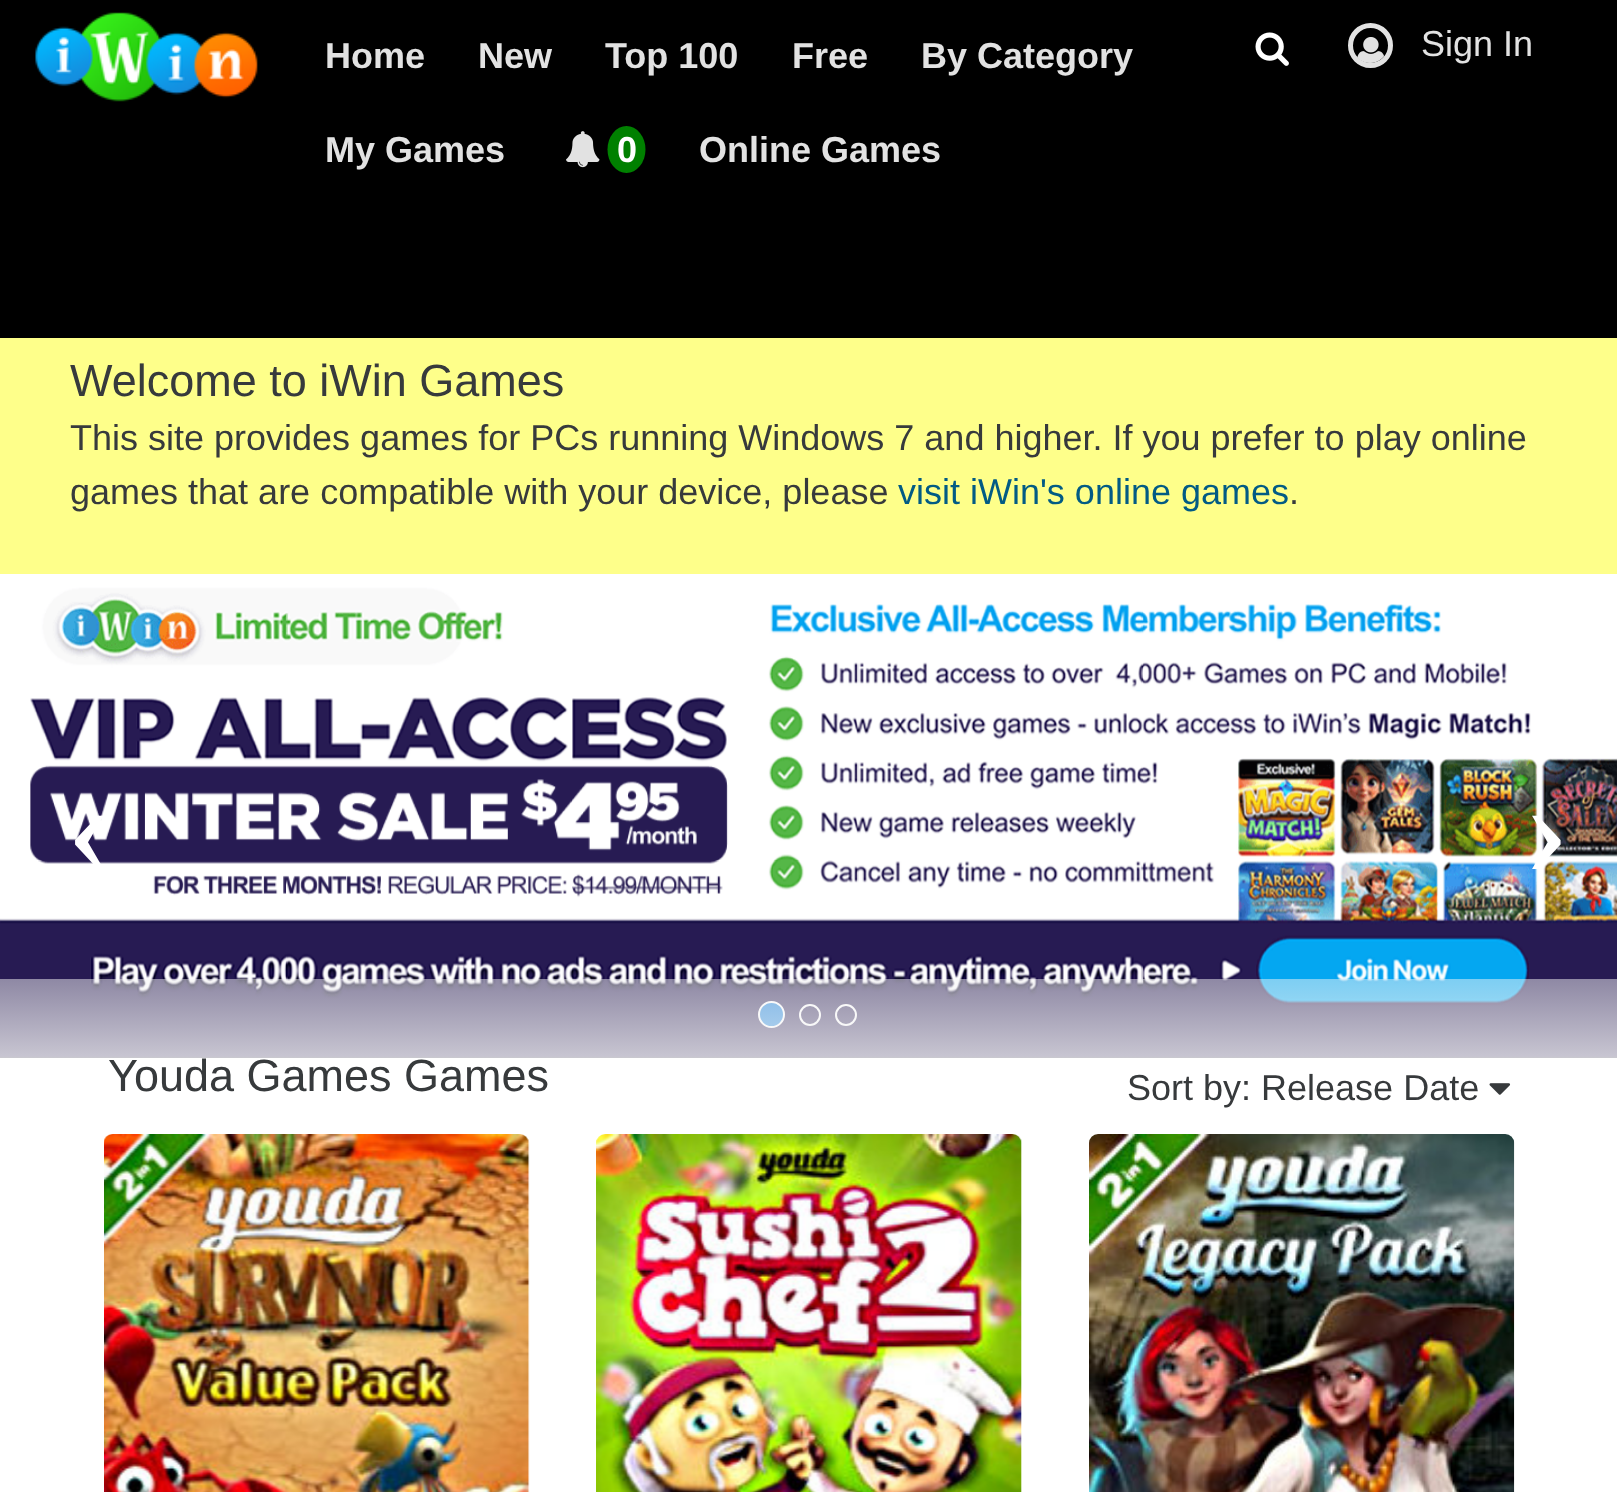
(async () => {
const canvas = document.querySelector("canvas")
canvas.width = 1617
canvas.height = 1492
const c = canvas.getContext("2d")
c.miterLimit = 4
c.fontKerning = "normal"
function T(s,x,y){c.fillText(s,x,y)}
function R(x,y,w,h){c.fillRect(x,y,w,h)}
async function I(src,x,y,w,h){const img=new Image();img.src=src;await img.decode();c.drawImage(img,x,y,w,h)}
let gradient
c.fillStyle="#fff"
R(0,0,1617,1492)
c.fillStyle="#000"
R(0,0,1617,338)
await I("1.png",35,12,223,90)
c.font="bold 36px Liberation Sans"
c.fillStyle="#e2e2e2"
T("Home",325,68)
T("New",478,68)
T("Top 100",605,68)
T("Free",792,68)
T("By Category",921,68)
T("My Games",325,162)
await I("2.png",566,131,34,37)
c.fillStyle="#008000"
c.beginPath()
c.ellipse(626.5,149.5,19,23.5,0,0,7)
c.fill()
c.fillStyle="#fff"
T("0",617,162)
c.fillStyle="#e2e2e2"
T("Online Games",699,162)
await I("3.png",1255,32,34,34)
c.beginPath()
c.arc(1370.5,45.5,20,0,7)
c.strokeStyle="#e2e2e2"
c.lineWidth=5
c.stroke()
await I("4.png",1357,37,27,26)
c.font="36px Liberation Sans"
T("Sign In",1421,56)
c.fillStyle="#feff8a"
R(0,338,1617,236)
c.font="45px Liberation Sans"
c.fillStyle="#373a3c"
T("Welcome to iWin Games",70,396)
c.font="36px Liberation Sans"
T("This site provides games for PCs running Windows 7 and higher. If you prefer to play online",70,450)
T("games that are compatible with your device, please",70,504)
c.fillStyle="#025b84"
T("visit iWin's online games",898,504)
c.fillStyle="#373a3c"
T(".",1289,504)
c.fillStyle="#333"
R(0,1056,1617,2)
await I("5.png",0,574,1617,484)
c.font="140px Liberation Serif"
c.fillStyle="#fff"
T("‹",66,874)
T("›",1523,874)
c.fillStyle="#0275d8"
c.beginPath()
c.arc(771.5,1014.5,12.5,0,7)
c.fill()
c.strokeStyle="#fff"
c.lineWidth=2
c.stroke()
c.beginPath()
c.arc(810,1015,10,0,7)
c.stroke()
c.beginPath()
c.arc(846,1015,10,0,7)
c.stroke()
gradient = c.createLinearGradient(0,979,0,1118)
gradient.addColorStop(0,"#f5f5f580")
gradient.addColorStop(1,"#f5f5f5")
c.fillStyle = gradient
R(0,979,1617,79)
c.font="45px Liberation Sans"
c.fillStyle="#373a3c"
T("Youda Games Games",108,1091)
c.font="36px Liberation Sans"
T("Sort by: Release Date",1127,1100)
await I("6.png",1489,1083,22,12)
await I("7.png",104,1134,426,358)
await I("8.png",596,1134,426,358)
await I("9.png",1089,1134,426,358)
})()
